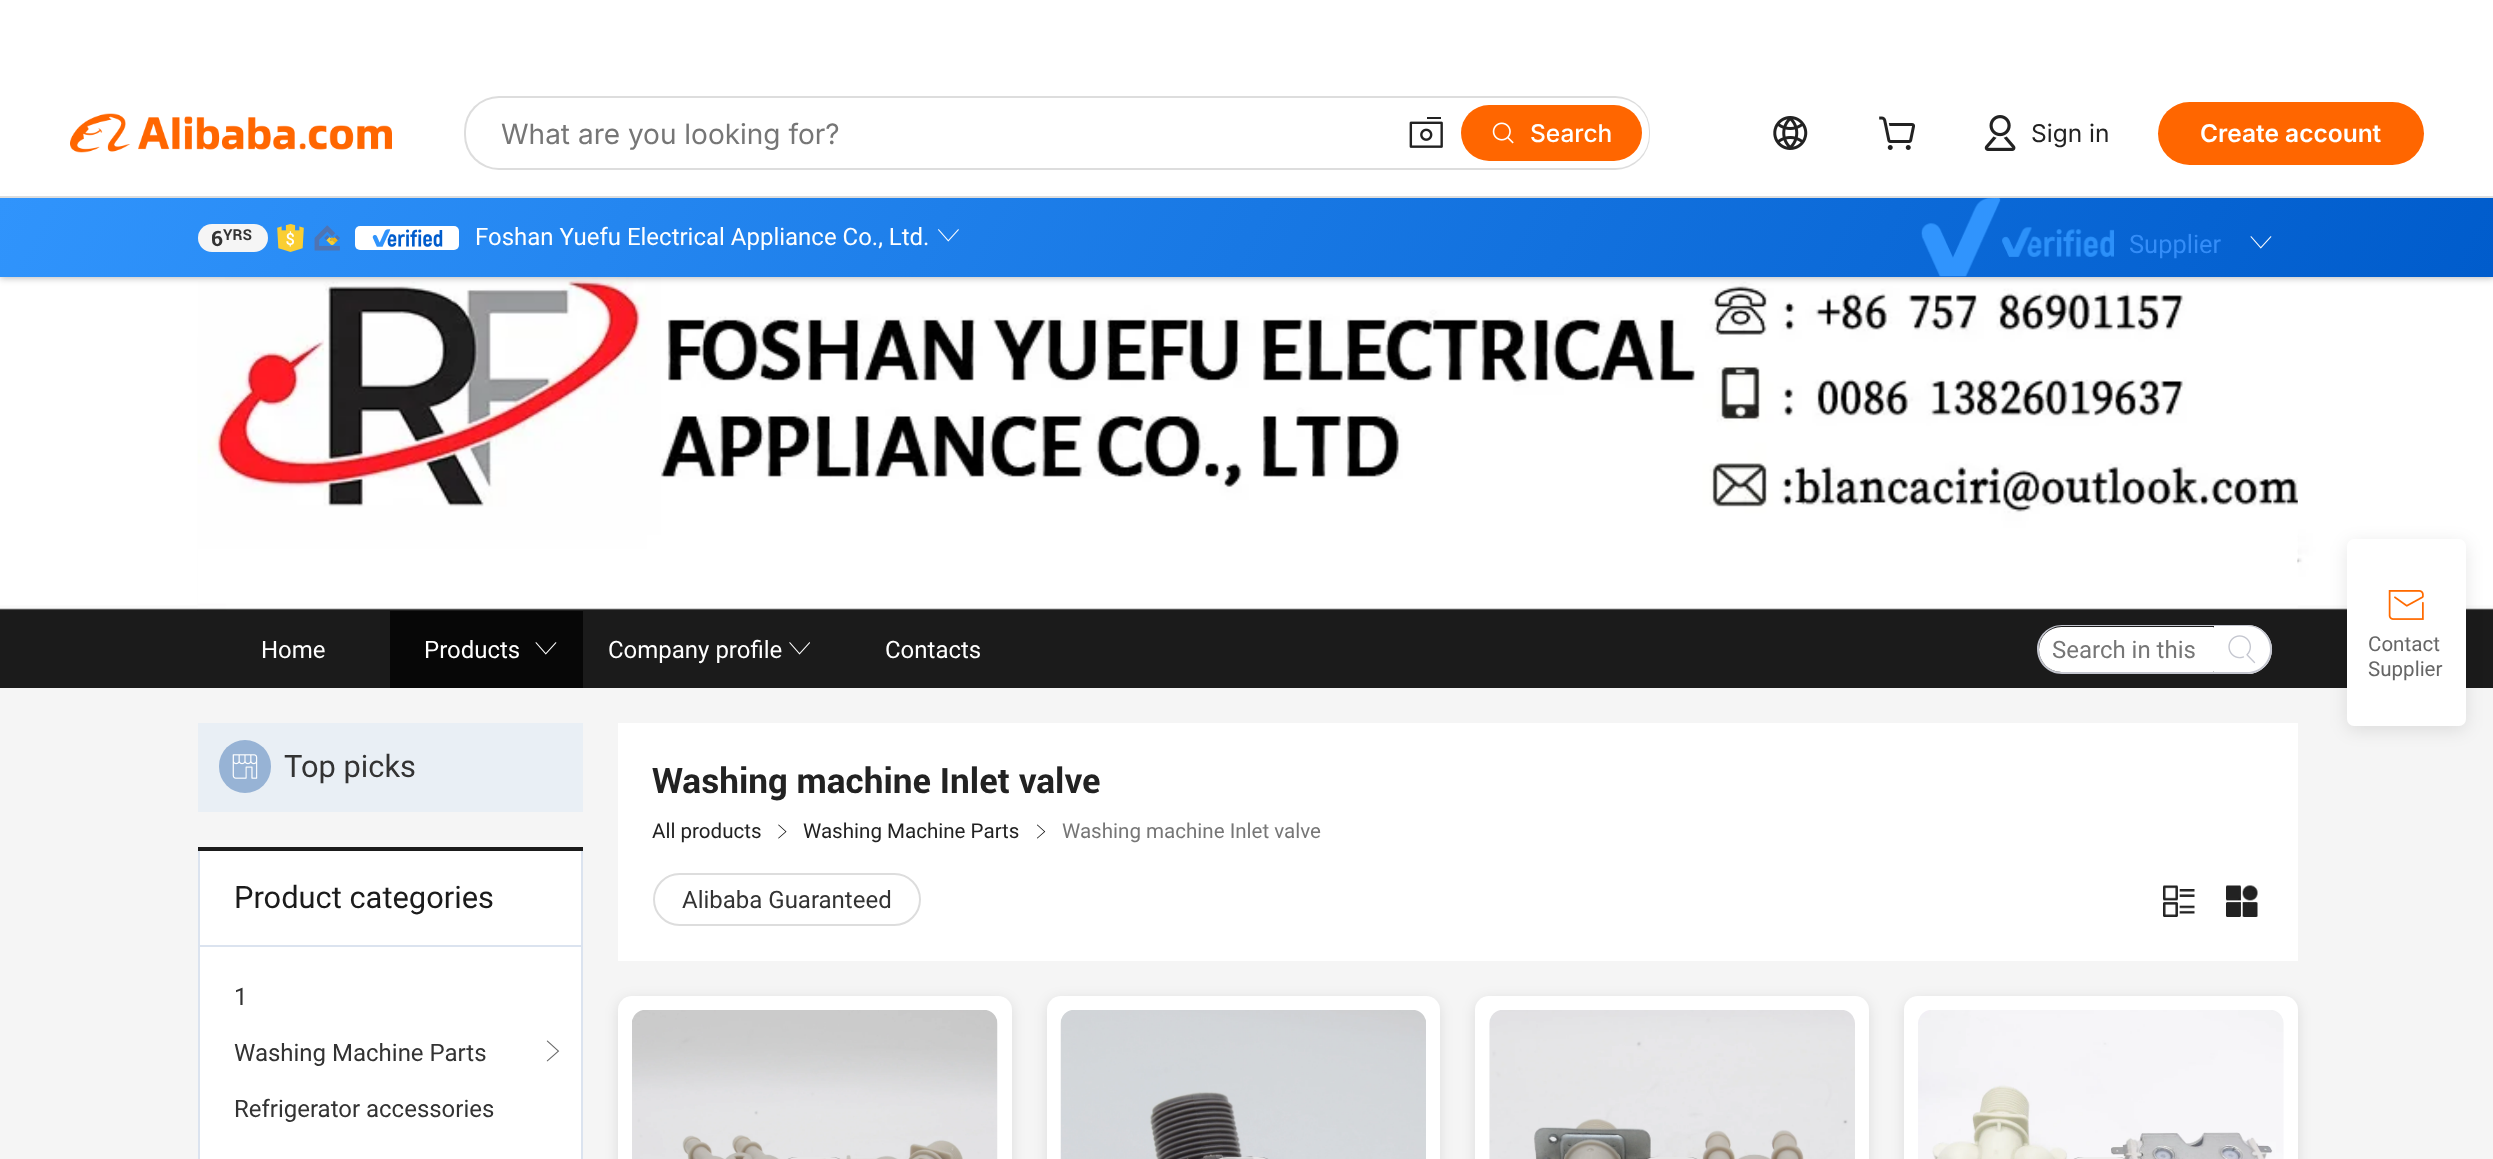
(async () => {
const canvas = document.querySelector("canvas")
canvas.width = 2493
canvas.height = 1159
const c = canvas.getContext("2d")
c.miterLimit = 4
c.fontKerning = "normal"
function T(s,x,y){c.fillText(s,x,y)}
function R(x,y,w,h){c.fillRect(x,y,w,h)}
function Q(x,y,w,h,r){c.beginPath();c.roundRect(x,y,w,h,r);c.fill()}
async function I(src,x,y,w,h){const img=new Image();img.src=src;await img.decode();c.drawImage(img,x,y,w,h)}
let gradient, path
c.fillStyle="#fff"
R(0,0,2493,1159)
await I("17.png",0,334,2493,277)
await I("13.png",197,277,2101,334)
c.fillStyle="#00000047"
c.filter="blur(3.5px)"
c.beginPath()
c.rect(0,200,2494,78)
c.fill()
c.filter="none"
c.fillStyle="#fff"
R(0,194,2493,2)
c.fillStyle="#ddd"
R(0,196,2493,2)
await I("1.png",70,113,322,40)
Q(464,96,1186,74,35)
c.fillStyle="#fff"
Q(466,98,1183,70,33)
c.font="28px Inter"
c.fillStyle="#767676"
T("What are you looking for?",501,144)
await I("2.png",1409,117,34,31)
c.fillStyle="#f60"
Q(1461,105,181,56,28)
await I("3.png",1492,122,22,22)
c.font="500 24.5px Inter"
c.fillStyle="#fff"
T("Search",1530,142)
await I("4.png",1773,116,35,34)
await I("5.png",1879,116,36,34)
await I("6.png",1984,115,32,36)
c.font="24.5px Inter"
c.fillStyle="#222"
T("Sign in",2031,142)
c.fillStyle="#f60"
Q(2158,102,266,63,31.5)
c.font="600 24.5px Inter"
c.fillStyle="#fff"
T("Create account",2200,142)
gradient = c.createLinearGradient(258,-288,2235,763)
gradient.addColorStop(0,"#3094fc")
gradient.addColorStop(1,"#005ccc")
c.fillStyle = gradient
R(0,198,2493,79)
c.fillStyle="#f5f5f5"
Q(198,224,70,28,14)
c.font="bold 21px Roboto"
c.fillStyle="#333"
T("6",211,246)
c.font="bold 15px Roboto"
T("YRS",223,240)
await I("7.png",277,224,27,28)
await I("8.png",314,225,26,26)
c.fillStyle="#fff"
Q(355,226,104,24,5)
await I("9.png",372,229,71,18)
c.font="24.5px Roboto"
T("Foshan Yuefu Electrical Appliance Co., Ltd.",475,245)
await I("10.png",938,229,21,13)
await I("11.png",1921,198,193,79)
c.font="26px Roboto"
c.fillStyle="#348df8"
T("Supplier",2129,253)
await I("12.png",2250,236,22,13)
c.fillStyle="#1b1b1b"
R(0,611,2493,77)
c.font="24.5px Roboto"
c.fillStyle="#fff"
T("Home",261,658)
c.fillStyle="#070707"
R(390,611,193,77)
c.fillStyle="#fff"
T("Products",424,658)
await I("14.png",535,642,22,13)
T("Company profile",608,658)
await I("15.png",789,642,21,13)
T("Contacts",885,658)
c.fillStyle="#c4c6cf"
path = new Path2D("M2062 625h152v49h-152c-14 0-25-11-25-25c0-13 11-24 25-24zm0 1h152v46h-152c-13 0-23-10-23-23c0-12 10-23 23-23z")
c.fill(path,"evenodd")
c.fillStyle="#fff"
c.beginPath()
c.roundRect(2039,627,175,45,[22.5,1,1,22.5])
c.fill()
c.fillStyle="#767676"
T("Search in this",2052,658)
c.fillStyle="#fff"
c.beginPath()
c.roundRect(2214,625,58,49,[0,24.5,24.5,0])
c.fill()
c.fillStyle="#c4c6cf"
path = new Path2D("M2214 625h33c14 0 25 11 25 24c0 14-11 25-25 25h-33zm0 1h33c13 0 23 11 23 23c0 13-10 23-23 23h-33z")
c.fill(path,"evenodd")
await I("16.png",2228,635,28,29)
c.fillStyle="#f5f5f5"
R(0,688,2493,471)
c.fillStyle="#e9eff5"
R(198,723,385,89)
c.fillStyle="#97b3d5"
Q(219,740,52,53,26)
await I("18.png",232,754,26,25)
c.font="31.5px Roboto"
c.fillStyle="#333"
T("Top picks",284,777)
c.fillStyle="#fff"
R(200,851,381,308)
c.fillStyle="#1b1b1b"
R(198,847,385,4)
c.fillStyle="#dbe3ef"
R(581,851,2,308)
R(198,851,2,308)
R(200,945,381,2)
c.fillStyle="#1b1b1b"
T("Product categories",234,908)
c.font="24.5px Roboto"
c.fillStyle="#333"
T("1",234,1005)
T("Washing Machine Parts",234,1061)
await I("19.png",546,1040,14,22)
T("Refrigerator accessories",234,1117)
c.fillStyle="#fff"
R(618,723,1680,238)
c.font="bold 35px Roboto"
c.fillStyle="#222"
T("Washing machine Inlet valve",652,793)
c.font="21px Roboto"
T("All products",652,838)
await I("20.png",778,824,9,15)
T("Washing Machine Parts",803,838)
await I("21.png",1037,824,9,15)
c.fillStyle="#767676"
T("Washing machine Inlet valve",1062,838)
c.beginPath()
c.roundRect(654,874,266,51,25.5)
c.strokeStyle="#ddd"
c.lineWidth=2
c.stroke()
c.font="24.5px Roboto"
c.fillStyle="#333"
T("Alibaba Guaranteed",682,908)
await I("22.png",2163,885,32,32)
await I("23.png",2226,885,33,32)
c.fillStyle="#0000001a"
c.filter="blur(7px)"
c.beginPath()
c.roundRect(618,999,394,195,14)
c.fill()
c.filter="none"
c.fillStyle="#fff"
Q(618,996,394,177,14)
await I("24.png",632,1010,366,149)
c.fillStyle="#00000045"
Q(777,1157,74,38,36)
c.beginPath()
c.roundRect(779,1159,70,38,34)
c.strokeStyle="#ffffffb8"
c.lineWidth=4
c.stroke()
c.fillStyle="#0000001a"
c.filter="blur(7px)"
c.beginPath()
c.roundRect(1047,999,393,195,14)
c.fill()
c.filter="none"
c.fillStyle="#fff"
Q(1047,996,393,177,14)
await I("25.png",1060,1010,366,149)
c.fillStyle="#00000045"
Q(1206,1157,73,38,36)
c.beginPath()
c.roundRect(1208,1159,69,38,34)
c.stroke()
c.fillStyle="#0000001a"
c.filter="blur(7px)"
c.beginPath()
c.roundRect(1475,999,394,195,14)
c.fill()
c.filter="none"
c.fillStyle="#fff"
Q(1475,996,394,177,14)
await I("26.png",1489,1010,366,149)
c.fillStyle="#00000045"
Q(1635,1157,73,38,36)
c.beginPath()
c.roundRect(1637,1159,69,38,34)
c.stroke()
c.fillStyle="#0000001a"
c.filter="blur(7px)"
c.beginPath()
c.roundRect(1904,999,394,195,14)
c.fill()
c.filter="none"
c.fillStyle="#fff"
Q(1904,996,394,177,14)
await I("27.png",1918,1010,366,149)
c.fillStyle="#b4b4b6"
Q(2063,1157,74,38,36)
c.beginPath()
c.roundRect(2065,1159,70,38,34)
c.strokeStyle="#fefefecc"
c.stroke()
c.fillStyle="#0000001a"
c.filter="blur(9px)"
c.beginPath()
c.roundRect(2347,543,119,187,7)
c.fill()
c.filter="none"
c.fillStyle="#fff"
Q(2347,539,119,187,7)
await I("28.png",2388,590,36,30)
c.font="21px Roboto"
c.fillStyle="#666"
T("Contact",2368,651)
T("Supplier",2368,676)
})()
